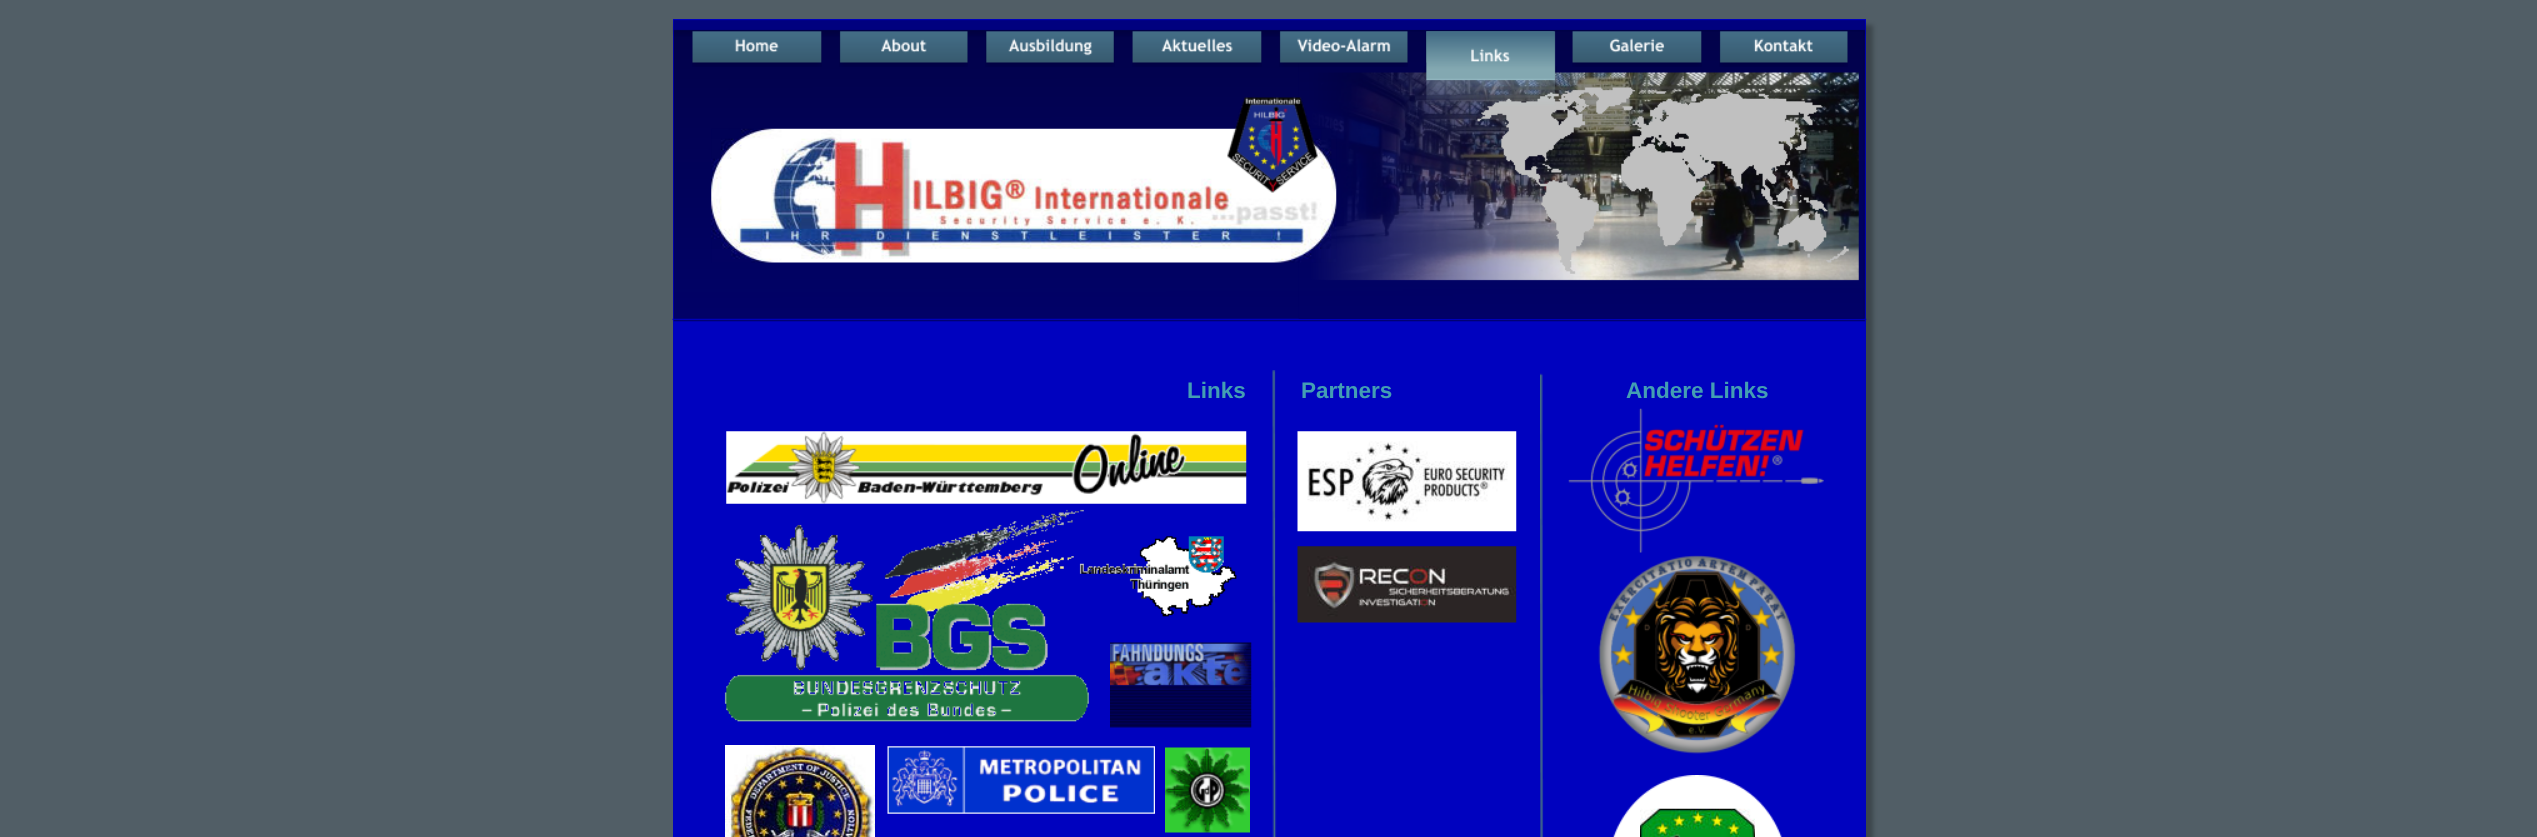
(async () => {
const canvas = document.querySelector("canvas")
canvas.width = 2537
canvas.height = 837
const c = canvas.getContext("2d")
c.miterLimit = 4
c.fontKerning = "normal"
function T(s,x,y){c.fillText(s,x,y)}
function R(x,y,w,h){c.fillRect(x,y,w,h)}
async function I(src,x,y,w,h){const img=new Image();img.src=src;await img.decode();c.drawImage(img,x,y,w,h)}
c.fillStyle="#515e66"
R(0,0,2537,837)
c.fillStyle="#00000040"
c.filter="blur(2px)"
c.beginPath()
c.rect(679,25,1194,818)
c.fill()
c.filter="none"
c.fillStyle="#0002bf"
R(673,19,1193,818)
await I("1.png",672,19,1195,303)
await I("2.png",692,31,130,36)
await I("3.png",839,31,129,36)
await I("4.png",985,31,130,36)
await I("5.png",1132,31,130,36)
await I("11.png",1298,31,566,288)
await I("6.png",1279,31,129,36)
await I("8.png",1425,31,130,36)
await I("13.png",1477,87,372,187)
await I("7.png",1424,31,133,75)
await I("9.png",1572,31,130,36)
await I("10.png",1719,31,129,36)
await I("14.png",711,128,626,135)
await I("12.png",1227,97,91,96)
c.font="bold 22.5px Liberation Sans"
c.fillStyle="#439eb3"
T("Links",1187,398)
await I("15.png",1272,370,5,467)
T("Partners",1301,398)
await I("16.png",1540,373,4,464)
T("Andere Links",1626,398)
await I("17.png",726,431,521,73)
await I("18.png",1297,431,220,101)
await I("19.png",1568,408,256,145)
await I("20.png",724,509,365,213)
await I("21.png",1079,536,158,81)
await I("22.png",1297,546,220,77)
await I("23.png",1598,555,198,199)
await I("24.png",1110,642,142,86)
await I("25.png",725,745,150,92)
await I("26.png",887,746,268,68)
await I("27.png",1165,747,85,86)
await I("28.png",1612,775,170,62)
await I("29.png",1640,808,115,29)
})()
